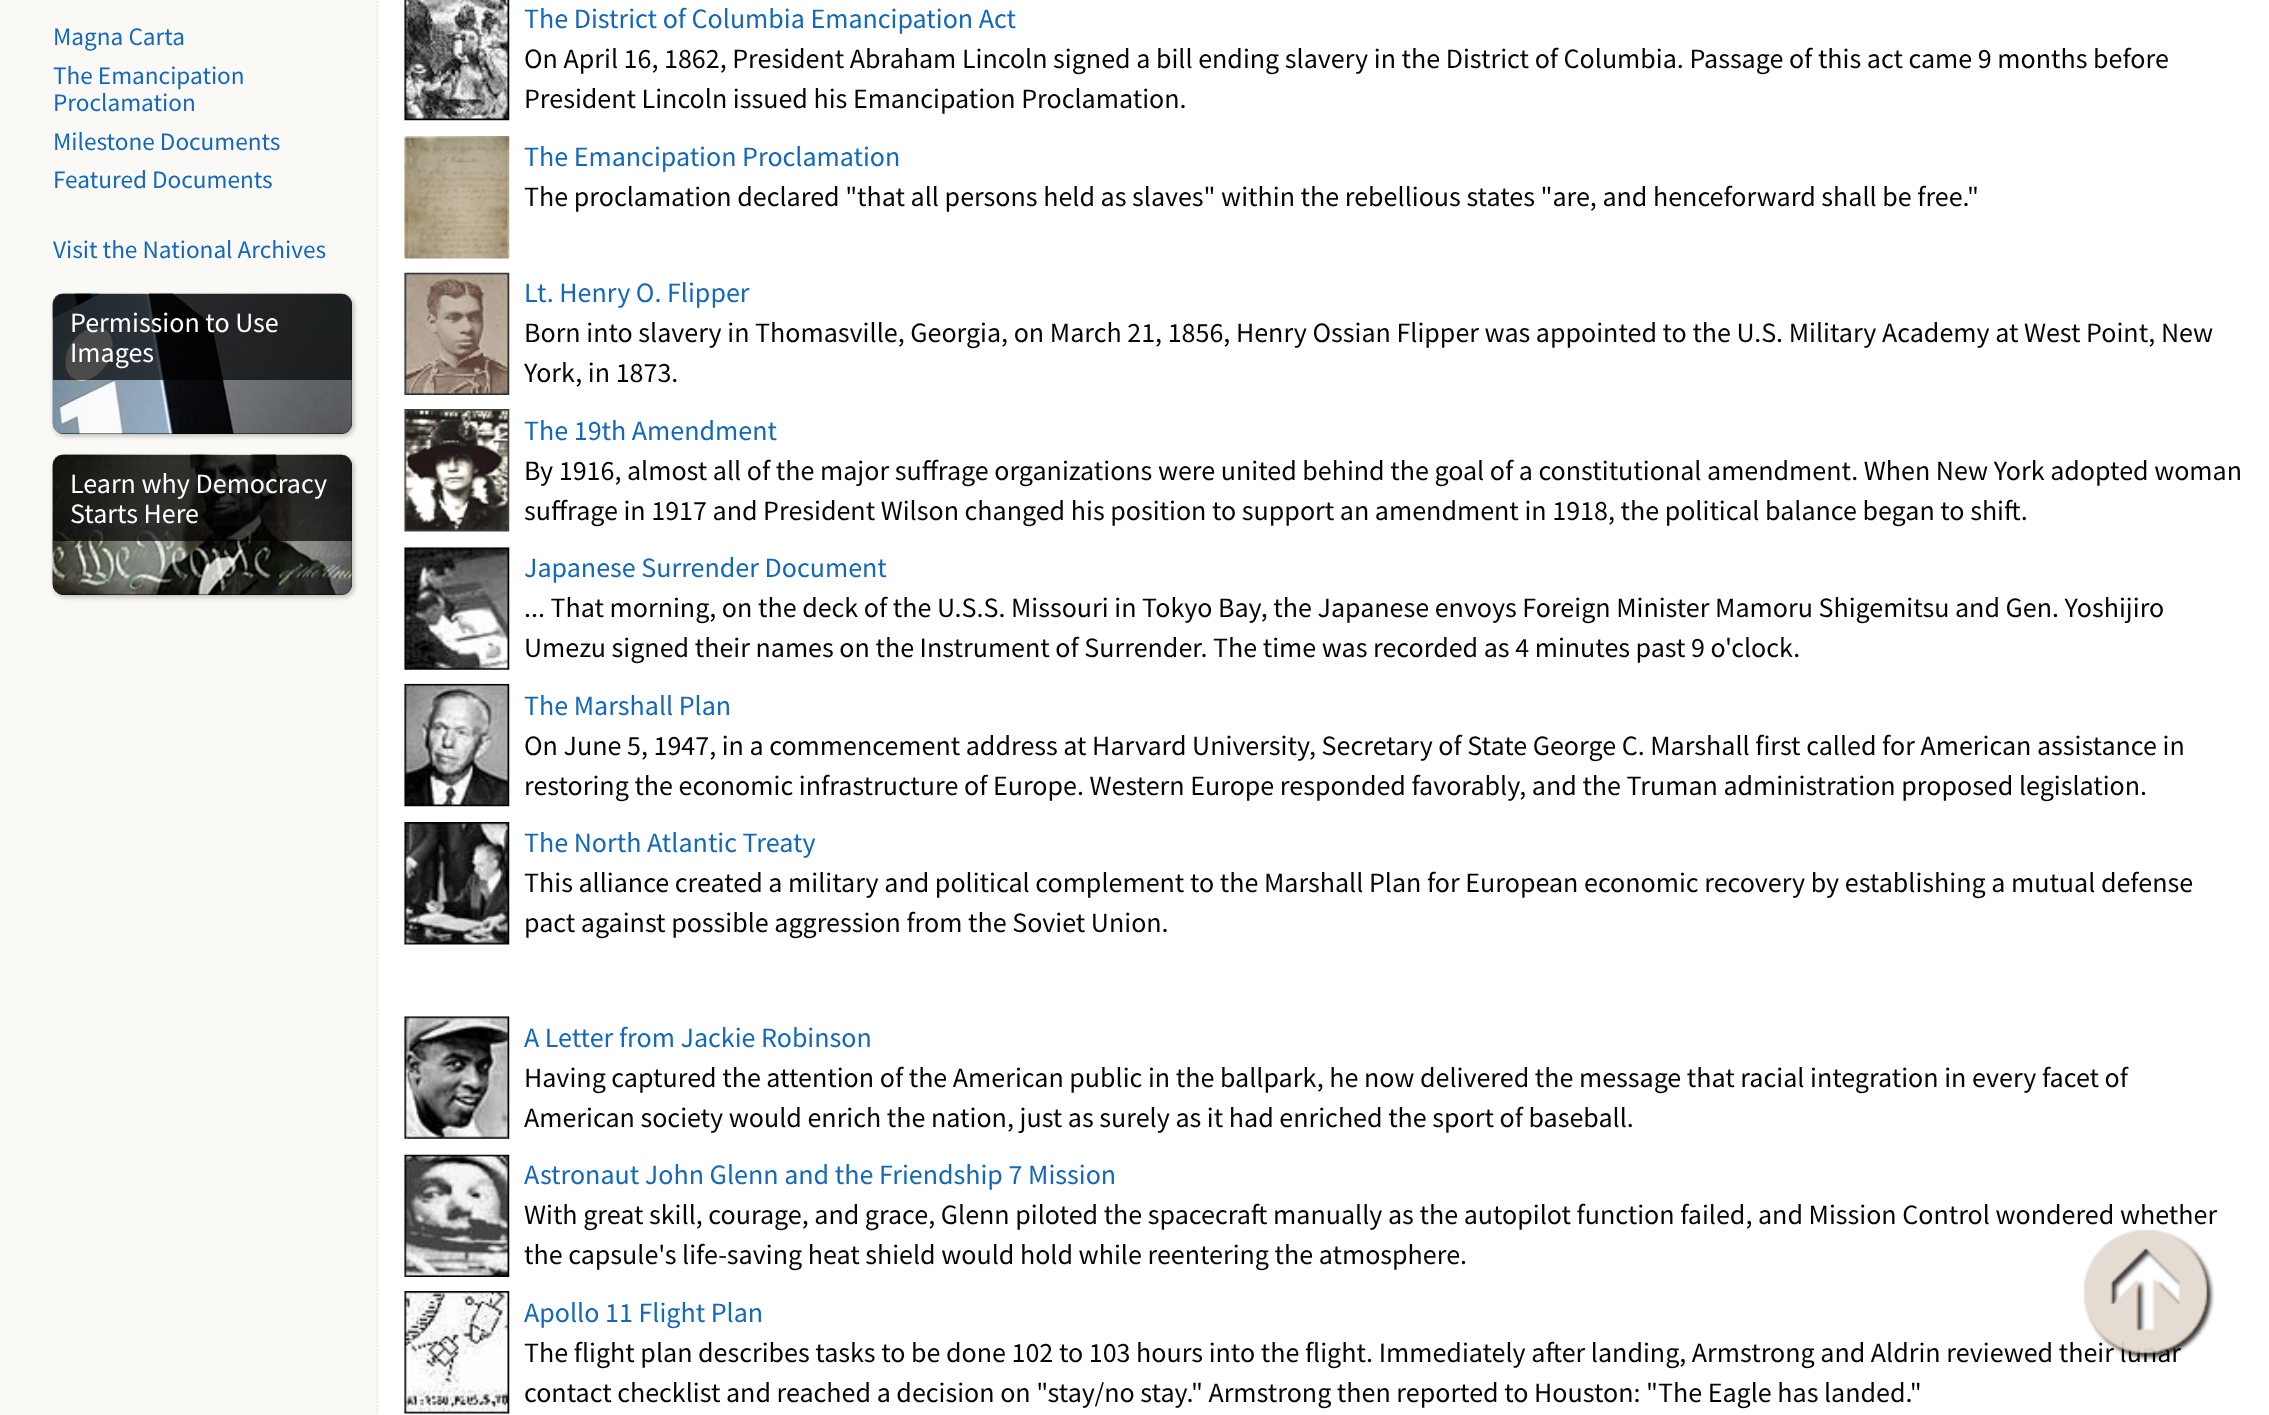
(async () => {
const canvas = document.querySelector("canvas")
canvas.width = 2269
canvas.height = 1415
const c = canvas.getContext("2d")
c.miterLimit = 4
c.fontKerning = "normal"
function T(s,x,y){c.fillText(s,x,y)}
function R(x,y,w,h){c.fillRect(x,y,w,h)}
function Q(x,y,w,h,r){c.beginPath();c.roundRect(x,y,w,h,r);c.fill()}
async function I(src,x,y,w,h){const img=new Image();img.src=src;await img.decode();c.drawImage(img,x,y,w,h)}
c.fillStyle="#fff"
R(0,0,2269,1415)
await I("1.png",0,0,379,1415)
c.font="25.25px Source Sans Pro"
c.fillStyle="#1368ba"
T("Magna Carta",53,45)
T("The Emancipation",53,84)
T("Proclamation",53,111)
T("Milestone Documents",53,150)
T("Featured Documents",53,188)
T("Visit the National Archives",53,258)
c.fillStyle="#00000040"
c.filter="blur(2.5px)"
c.beginPath()
c.roundRect(54,296,300,140,11)
c.fill()
c.filter="none"
c.fillStyle="#000"
Q(53,294,299,140,11)
await I("2.png",52,293,300,141)
c.fillStyle="#000000b3"
c.beginPath()
c.roundRect(53,294,299,86,[11,11,0,0])
c.fill()
c.font="28px Source Sans Pro"
c.fillStyle="#fff"
T("Permission to Use",70,332)
T("Images",70,362)
c.fillStyle="#00000040"
c.filter="blur(2.5px)"
c.beginPath()
c.roundRect(54,457,300,140,11)
c.fill()
c.filter="none"
c.fillStyle="#000"
Q(53,455,299,140,11)
await I("3.png",52,454,300,141)
c.fillStyle="#000000b3"
c.beginPath()
c.roundRect(53,455,299,86,[11,11,0,0])
c.fill()
c.fillStyle="#fff"
T("Learn why Democracy",70,493)
T("Starts Here",70,523)
await I("4.png",404,0,106,121)
c.fillStyle="#1368ba"
T("The District of Columbia Emancipation Act",524,28)
c.fillStyle="#050505"
T("On April 16, 1862, President Abraham Lincoln signed a bill ending slavery in the District of Columbia. Passage of this act came 9 months before",524,68)
T("President Lincoln issued his Emancipation Proclamation.",524,108)
await I("5.png",404,136,106,123)
c.fillStyle="#1368ba"
T("The Emancipation Proclamation",524,166)
c.fillStyle="#050505"
T("The proclamation declared \"that all persons held as slaves\" within the rebellious states \"are, and henceforward shall be free.\"",524,206)
await I("6.png",404,272,106,123)
c.fillStyle="#1368ba"
T("Lt. Henry O. Flipper",524,302)
c.fillStyle="#050505"
T("Born into slavery in Thomasville, Georgia, on March 21, 1856, Henry Ossian Flipper was appointed to the U.S. Military Academy at West Point, New",524,342)
T("York, in 1873.",524,382)
await I("7.png",404,409,106,123)
c.fillStyle="#1368ba"
T("The 19th Amendment",524,440)
c.fillStyle="#050505"
T("By 1916, almost all of the major suffrage organizations were united behind the goal of a constitutional amendment. When New York adopted woman",524,480)
T("suffrage in 1917 and President Wilson changed his position to support an amendment in 1918, the political balance began to shift.",524,520)
await I("8.png",404,547,106,123)
c.fillStyle="#1368ba"
T("Japanese Surrender Document",524,577)
c.fillStyle="#050505"
T("... That morning, on the deck of the U.S.S. Missouri in Tokyo Bay, the Japanese envoys Foreign Minister Mamoru Shigemitsu and Gen. Yoshijiro",524,617)
T("Umezu signed their names on the Instrument of Surrender. The time was recorded as 4 minutes past 9 o'clock.",524,657)
await I("9.png",404,683,106,124)
c.fillStyle="#1368ba"
T("The Marshall Plan",524,715)
c.fillStyle="#050505"
T("On June 5, 1947, in a commencement address at Harvard University, Secretary of State George C. Marshall first called for American assistance in",524,755)
T("restoring the economic infrastructure of Europe. Western Europe responded favorably, and the Truman administration proposed legislation.",524,795)
await I("10.png",404,822,106,123)
c.fillStyle="#1368ba"
T("The North Atlantic Treaty",524,852)
c.fillStyle="#050505"
T("This alliance created a military and political complement to the Marshall Plan for European economic recovery by establishing a mutual defense",524,892)
T("pact against possible aggression from the Soviet Union.",524,932)
await I("11.png",404,1016,106,123)
c.fillStyle="#1368ba"
T("A Letter from Jackie Robinson",524,1047)
c.fillStyle="#050505"
T("Having captured the attention of the American public in the ballpark, he now delivered the message that racial integration in every facet of",524,1087)
T("American society would enrich the nation, just as surely as it had enriched the sport of baseball.",524,1127)
await I("12.png",404,1154,106,123)
c.fillStyle="#1368ba"
T("Astronaut John Glenn and the Friendship 7 Mission",524,1184)
c.fillStyle="#050505"
T("With great skill, courage, and grace, Glenn piloted the spacecraft manually as the autopilot function failed, and Mission Control wondered whether",524,1224)
T("the capsule's life-saving heat shield would hold while reentering the atmosphere.",524,1264)
await I("13.png",404,1291,106,123)
c.fillStyle="#1368ba"
T("Apollo 11 Flight Plan",524,1322)
c.fillStyle="#050505"
T("The flight plan describes tasks to be done 102 to 103 hours into the flight. Immediately after landing, Armstrong and Aldrin reviewed their lunar",524,1362)
T("contact checklist and reached a decision on \"stay/no stay.\" Armstrong then reported to Houston: \"The Eagle has landed.\"",524,1402)
await I("14.png",2084,1230,130,130)
await I("15.png",2084,1230,130,130)
})()
